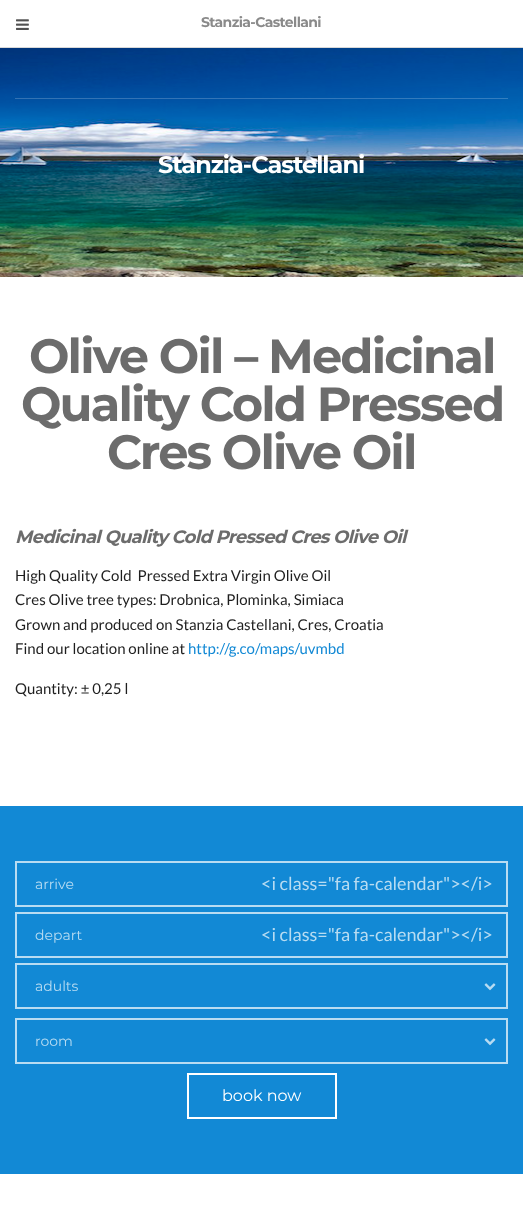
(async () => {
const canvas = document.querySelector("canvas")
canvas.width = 523
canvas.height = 1217
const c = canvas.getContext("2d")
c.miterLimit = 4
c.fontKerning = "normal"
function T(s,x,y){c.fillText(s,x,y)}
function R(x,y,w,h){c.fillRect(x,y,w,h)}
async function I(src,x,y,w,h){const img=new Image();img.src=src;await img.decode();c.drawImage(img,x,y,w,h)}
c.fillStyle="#fff"
R(0,0,523,1217)
c.fillStyle="#d9d9d9"
R(0,47,523,1)
await I("1.png",16,19,13,11)
c.letterSpacing="-0.6px"
c.font="bold 14px Montserrat"
c.fillStyle="#8a8a8a"
T("Stanzia-Castellani",201,27)
await I("2.png",0,48,523,229)
c.fillStyle="#ffffff33"
R(15,98,493,1)
c.letterSpacing="-1px"
c.font="bold 24px Montserrat"
c.fillStyle="#fff"
T("Stanzia-Castellani",158,173)
c.letterSpacing="-1.9px"
c.font="bold 48px Montserrat"
c.fillStyle="#6c6c6c"
T("Olive Oil – Medicinal",29,373)
T("Quality Cold Pressed",21,421)
T("Cres Olive Oil",107,469)
c.letterSpacing="-0.7px"
c.font="italic bold 18px Montserrat"
T("Medicinal Quality Cold Pressed Cres Olive Oil",15,543)
c.letterSpacing="0px"
c.font="15px Lato"
c.fillStyle="#1e1e1e"
T("High Quality Cold  Pressed Extra Virgin Olive Oil",15,581)
T("Cres Olive tree types: Drobnica, Plominka, Simiaca",15,605)
T("Grown and produced on Stanzia Castellani, Cres, Croatia",15,630)
T("Find our location online at",15,654)
c.fillStyle="#1289d5"
T("http://g.co/maps/uvmbd",188,654)
c.fillStyle="#1e1e1e"
T("Quantity: ± 0,25 l",15,694)
c.fillStyle="#1289d5"
R(0,806,523,368)
c.strokeStyle="#b8dcf2"
c.lineWidth=2
c.strokeRect(16,862,491,44)
c.font="14px Montserrat"
c.fillStyle="#b8dcf2"
T("arrive",35,889)
c.font="18px Lato"
T("<i class=\"fa fa-calendar\"><\/i>",261,890)
c.strokeRect(16,913,491,44)
c.font="14px Montserrat"
T("depart",35,940)
c.font="18px Lato"
T("<i class=\"fa fa-calendar\"><\/i>",261,941)
c.strokeRect(16,964,491,44)
c.font="14px Montserrat"
T("adults",35,991)
await I("3.png",484,983,12,8)
c.strokeRect(16,1019,491,44)
T("room",35,1046)
await I("3.png",484,1038,12,8)
c.strokeStyle="#fff"
c.strokeRect(188,1074,148,44)
c.font="16px Montserrat"
c.fillStyle="#fff"
T("book now",222,1101)
})()
